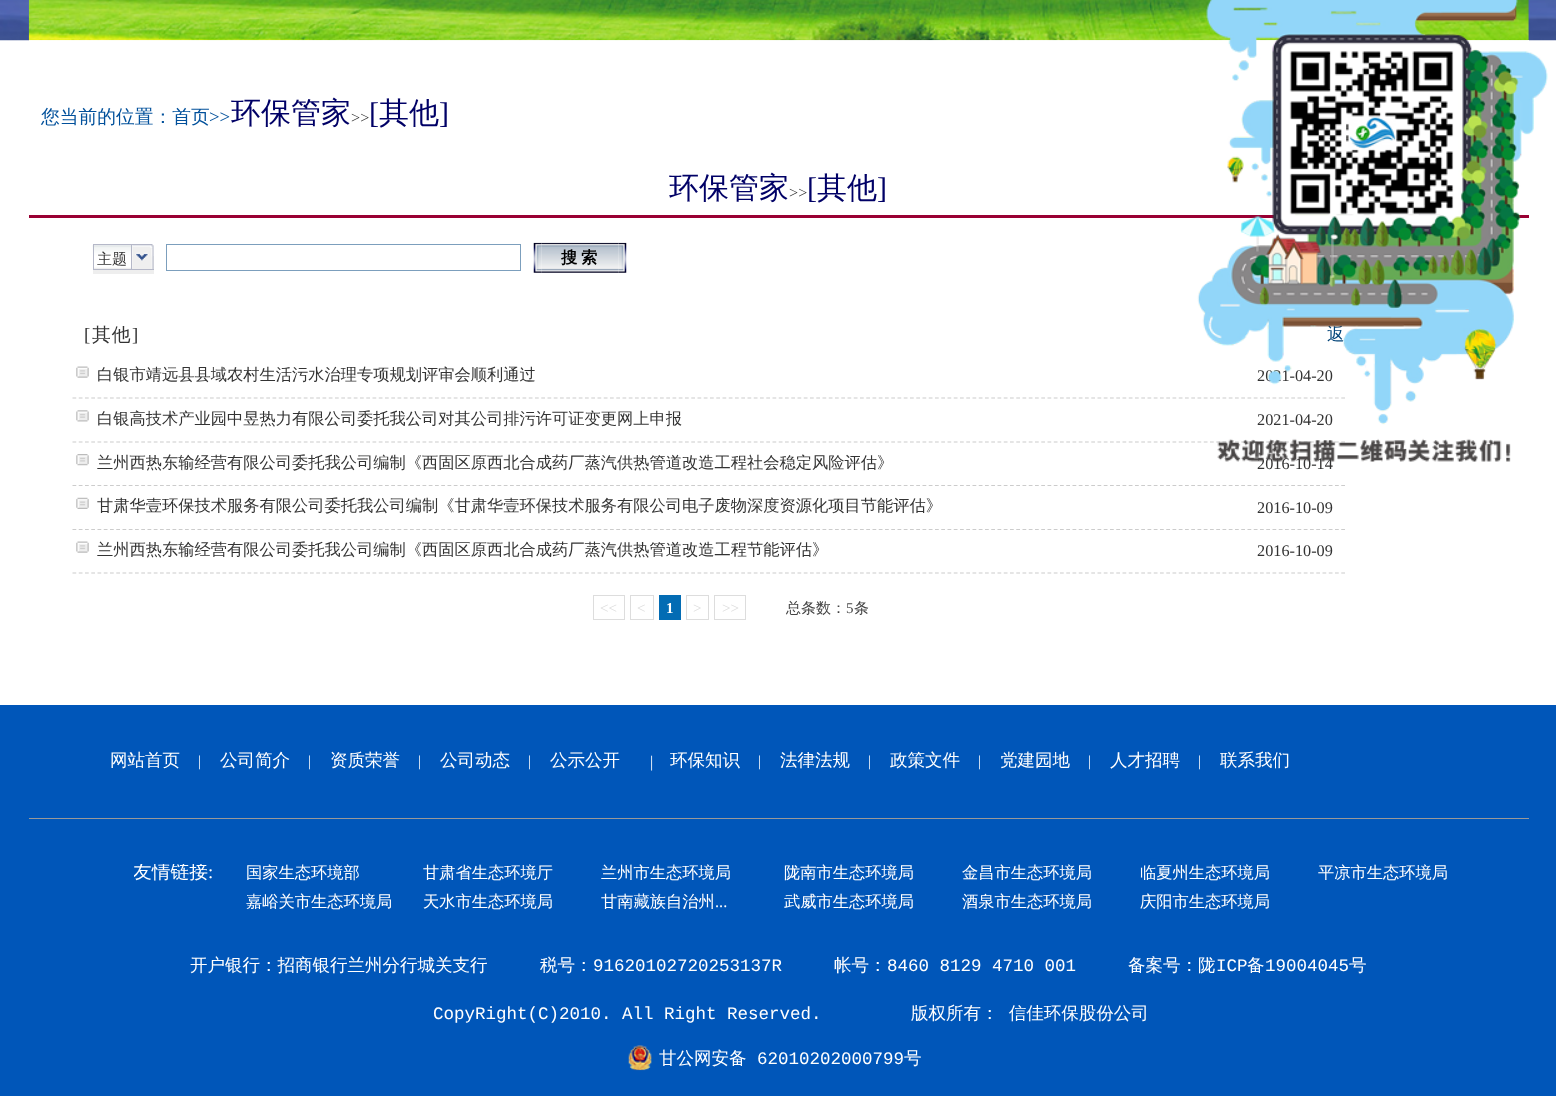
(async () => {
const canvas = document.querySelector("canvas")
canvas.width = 1556
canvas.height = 1096
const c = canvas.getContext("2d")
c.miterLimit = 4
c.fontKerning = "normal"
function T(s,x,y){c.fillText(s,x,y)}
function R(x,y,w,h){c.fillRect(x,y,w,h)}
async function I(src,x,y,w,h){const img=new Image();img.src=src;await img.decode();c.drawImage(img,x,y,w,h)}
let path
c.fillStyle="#fff"
R(0,0,1556,1096)
await I("1.png",0,0,1556,41)
R(29,40,1500,1)
await I("2.png",28,0,1501,41)
c.font="500 18.75px WenQuanYi Zen Hei"
c.fillStyle="#01509b"
T("您当前的位置：首页",41,123)
c.font="18.75px Liberation Serif"
T(">>",209,123)
c.font="500 30px WenQuanYi Zen Hei"
c.fillStyle="#006"
T("环保管家",231,123)
c.font="16.25px Liberation Serif"
c.fillStyle="#333"
T(">>",351,123)
c.font="30px Liberation Serif"
c.fillStyle="#006"
T("[",369,123)
c.font="500 30px WenQuanYi Zen Hei"
T("其他",379,123)
c.font="30px Liberation Serif"
T("]",439,123)
c.font="500 30px WenQuanYi Zen Hei"
T("环保管家",669,198)
c.font="16.25px Liberation Serif"
c.fillStyle="#333"
T(">>",789,198)
c.font="30px Liberation Serif"
c.fillStyle="#006"
T("[",807,198)
c.font="500 30px WenQuanYi Zen Hei"
T("其他",817,198)
c.font="30px Liberation Serif"
T("]",877,198)
c.fillStyle="#903"
R(29,215,1500,3)
c.fillStyle="#eee"
R(93,256,61,18)
c.fillStyle="#b5b8c8"
R(93,269,61,1)
await I("3.png",92,245,41,23)
R(93,244,40,1)
R(131,244,1,25)
R(93,244,1,25)
c.font="500 15px WenQuanYi Zen Hei"
c.fillStyle="#333"
T("主题",97,264)
await I("4.png",132,244,22,25)
c.strokeStyle="#7c9fbd"
c.strokeRect(166.5,244.5,354,26)
await I("5.png",533,242,9,31)
await I("7.png",618,242,9,31)
await I("6.png",541,242,78,31)
c.wordSpacing="-1px"
c.font="bold 16.25px WenQuanYi Zen Hei"
c.fillStyle="#000"
T("搜 索",561,263)
c.letterSpacing="1px"
c.wordSpacing="0px"
c.font="18.75px Liberation Serif"
c.fillStyle="#333"
T("[",84,341)
c.font="500 18.75px WenQuanYi Zen Hei"
T("其他",92,341)
c.font="18.75px Liberation Serif"
T("]",132,341)
c.letterSpacing="0px"
c.font="500 17.5px WenQuanYi Zen Hei"
c.fillStyle="#004378"
T("返",1327,340)
await I("8.png",76,366,13,12)
path = new Path2D("M72.5 398h1272.5")
c.strokeStyle="#ccc"
c.lineWidth=1.2
c.setLineDash([3.75,2.5])
c.stroke(path)
c.font="500 16.25px WenQuanYi Zen Hei"
c.fillStyle="#333"
T("白银市靖远县县域农村生活污水治理专项规划评审会顺利通过",97,380)
c.font="16.25px Liberation Serif"
T("2021-04-20",1257,381)
await I("9.png",76,410,13,12)
path = new Path2D("M72.5 442h1272.5")
c.stroke(path)
c.font="500 16.25px WenQuanYi Zen Hei"
T("白银高技术产业园中昱热力有限公司委托我公司对其公司排污许可证变更网上申报",97,424)
c.font="16.25px Liberation Serif"
T("2021-04-20",1257,425)
await I("10.png",76,454,13,12)
path = new Path2D("M72.5 485.5h1272.5")
c.stroke(path)
c.font="500 16.25px WenQuanYi Zen Hei"
T("兰州西热东输经营有限公司委托我公司编制《西固区原西北合成药厂蒸汽供热管道改造工程社会稳定风险评估》",97,468)
c.font="16.25px Liberation Serif"
T("2016-10-14",1257,469)
await I("11.png",76,497,13,12)
path = new Path2D("M72.5 529.5h1272.5")
c.stroke(path)
c.font="500 16.25px WenQuanYi Zen Hei"
T("甘肃华壹环保技术服务有限公司委托我公司编制《甘肃华壹环保技术服务有限公司电子废物深度资源化项目节能评估》",97,511)
c.font="16.25px Liberation Serif"
T("2016-10-09",1257,513)
await I("8.png",76,541,13,12)
path = new Path2D("M72.5 573h1272.5")
c.stroke(path)
c.font="500 16.25px WenQuanYi Zen Hei"
T("兰州西热东输经营有限公司委托我公司编制《西固区原西北合成药厂蒸汽供热管道改造工程节能评估》",97,555)
c.font="16.25px Liberation Serif"
T("2016-10-09",1257,556)
c.strokeStyle="#ddd"
c.lineWidth=1
c.setLineDash([])
c.strokeRect(593.5,595.5,31,24)
c.font="15px Liberation Serif"
c.fillStyle="#ddd"
T("<<",600,613)
c.strokeRect(630.5,595.5,23,24)
T("<",637,613)
c.fillStyle="#036cb4"
R(659,595,22,25)
c.font="bold 15px Liberation Serif"
c.fillStyle="#fff"
T("1",666,613)
c.strokeRect(686.5,595.5,22,24)
c.font="15px Liberation Serif"
c.fillStyle="#ddd"
T(">",693,613)
c.strokeRect(714.5,595.5,31,24)
T(">>",722,613)
c.font="500 15px WenQuanYi Zen Hei"
c.fillStyle="#444"
T("总条数：",786,613)
c.font="15px Liberation Serif"
T("5",846,613)
c.font="500 15px WenQuanYi Zen Hei"
T("条",854,613)
c.fillStyle="#0056b9"
R(0,705,1556,391)
await I("12.png",1197,0,351,462)
c.font="500 17.5px WenQuanYi Zen Hei"
c.fillStyle="#fff"
T("网站首页",110,766)
c.font="15px Liberation Serif"
T("|",198,766)
c.font="500 17.5px WenQuanYi Zen Hei"
T("公司简介",220,766)
c.font="15px Liberation Serif"
T("|",308,766)
c.font="500 17.5px WenQuanYi Zen Hei"
T("资质荣誉",330,766)
c.font="15px Liberation Serif"
T("|",418,766)
c.font="500 17.5px WenQuanYi Zen Hei"
T("公司动态",440,766)
c.font="15px Liberation Serif"
T("|",528,766)
c.font="500 17.5px WenQuanYi Zen Hei"
T("公示公开",550,766)
c.font="16.25px Liberation Serif"
T("|",650,767)
c.font="500 17.5px WenQuanYi Zen Hei"
T("环保知识",670,766)
c.font="15px Liberation Serif"
T("|",758,766)
c.font="500 17.5px WenQuanYi Zen Hei"
T("法律法规",780,766)
c.font="15px Liberation Serif"
T("|",868,766)
c.font="500 17.5px WenQuanYi Zen Hei"
T("政策文件",890,766)
c.font="15px Liberation Serif"
T("|",978,766)
c.font="500 17.5px WenQuanYi Zen Hei"
T("党建园地",1000,766)
c.font="15px Liberation Serif"
T("|",1088,766)
c.font="500 17.5px WenQuanYi Zen Hei"
T("人才招聘",1110,766)
c.font="15px Liberation Serif"
T("|",1198,766)
c.font="500 17.5px WenQuanYi Zen Hei"
T("联系我们",1220,766)
c.fillStyle="#999"
R(29,818,1500,1)
c.save()
c.beginPath()
c.rect(134,864,112,74)
c.clip()
c.font="500 18.75px WenQuanYi Zen Hei"
c.fillStyle="#fff"
T("友情链接",133,878)
c.restore()
c.font="18.75px Liberation Serif"
c.fillStyle="#fff"
T(":",208,878)
c.font="500 16.25px WenQuanYi Zen Hei"
T("国家生态环境部",246,878)
T("甘肃省生态环境厅",423,878)
T("兰州市生态环境局",601,878)
T("陇南市生态环境局",784,878)
T("金昌市生态环境局",962,878)
T("临夏州生态环境局",1140,878)
T("平凉市生态环境局",1318,878)
T("嘉峪关市生态环境局",246,907)
T("天水市生态环境局",423,907)
T("甘南藏族自治州",601,907)
c.font="16.25px Liberation Serif"
T("...",715,907)
c.font="500 16.25px WenQuanYi Zen Hei"
T("武威市生态环境局",784,907)
T("酒泉市生态环境局",962,907)
T("庆阳市生态环境局",1140,907)
c.font="500 17.5px WenQuanYi Zen Hei"
T("开户银行：招商银行兰州分行城关支行",190,971)
T("税号：",540,971)
c.font="17.5px Liberation Mono"
T("91620102720253137R",593,971)
c.font="500 17.5px WenQuanYi Zen Hei"
T("帐号：",834,971)
c.font="17.5px Liberation Mono"
T("8460 8129 4710 001",887,971)
c.font="500 17.5px WenQuanYi Zen Hei"
T("备案号：陇",1128,971)
c.font="17.5px Liberation Mono"
T("ICP",1216,971)
c.font="500 17.5px WenQuanYi Zen Hei"
T("备",1247,971)
c.font="17.5px Liberation Mono"
T("19004045",1265,971)
c.font="500 17.5px WenQuanYi Zen Hei"
T("号",1349,971)
c.font="17.5px Liberation Mono"
T("CopyRight(C)2010. All Right Reserved.",433,1019)
c.wordSpacing="5px"
c.font="500 17.5px WenQuanYi Zen Hei"
T("版权所有： 信佳环保股份公司",911,1019)
await I("13.png",628,1045,24,26)
c.wordSpacing="0px"
T("甘公网安备",659,1064)
c.font="17.5px Liberation Mono"
T("62010202000799",757,1064)
c.font="500 17.5px WenQuanYi Zen Hei"
T("号",904,1064)
})()
